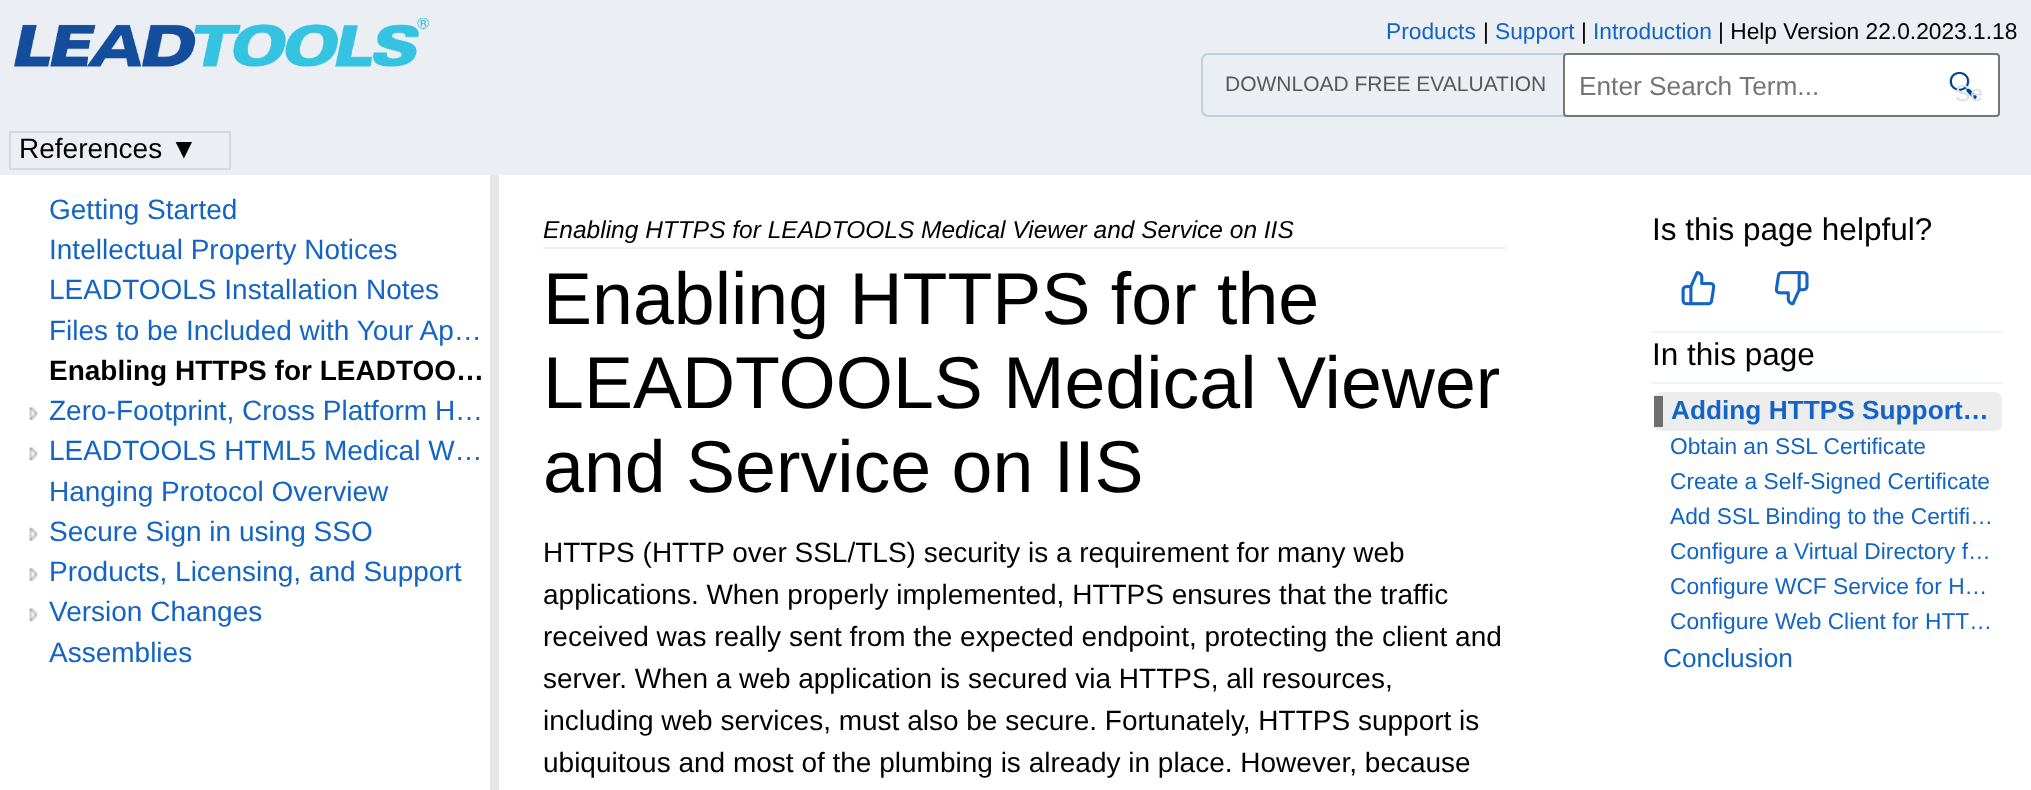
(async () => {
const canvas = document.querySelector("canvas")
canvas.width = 2031
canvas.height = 790
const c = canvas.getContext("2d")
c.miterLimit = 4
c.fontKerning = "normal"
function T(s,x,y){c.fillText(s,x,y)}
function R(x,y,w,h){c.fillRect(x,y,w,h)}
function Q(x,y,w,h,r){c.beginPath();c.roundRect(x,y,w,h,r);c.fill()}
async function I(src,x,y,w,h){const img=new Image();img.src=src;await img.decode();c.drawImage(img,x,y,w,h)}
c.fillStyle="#fff"
R(0,0,2031,790)
c.fillStyle="#ebeef3"
R(0,0,2031,175)
await I("1.png",14,18,415,49)
c.font="22.75px Liberation Sans"
c.fillStyle="#1364c4"
T("Products",1386,39)
c.fillStyle="#000"
T("|",1483,39)
c.fillStyle="#1364c4"
T("Support",1495,39)
c.fillStyle="#000"
T("|",1581,39)
c.fillStyle="#1364c4"
T("Introduction",1593,39)
c.fillStyle="#000"
T("| Help Version 22.0.2023.1.18",1718,39)
c.beginPath()
c.roundRect(1202,54,369,62,6)
c.strokeStyle="#c0cee1"
c.lineWidth=2
c.stroke()
c.font="21px Liberation Sans"
c.fillStyle="#585858"
T("DOWNLOAD FREE EVALUATION",1225,91)
c.fillStyle="#fff"
c.beginPath()
c.roundRect(1564,54,435,62,3)
c.fill()
c.strokeStyle="#767676"
c.stroke()
c.font="26.25px Liberation Sans"
c.fillStyle="#757575"
T("Enter Search Term...",1579,95)
await I("2.png",1949,72,28,27)
c.font="23px Liberation Sans"
c.fillStyle="#d6e0ec"
T("Se",1955,101)
c.strokeStyle="#d6d8dc"
c.strokeRect(10,132,220,37)
c.font="28px Liberation Sans"
c.fillStyle="#000"
T("References ▼",19,158)
c.fillStyle="#e6e6e6"
R(490,175,9,615)
c.fillStyle="#1364c4"
T("Getting Started",49,219)
T("Intellectual Property Notices",49,259)
T("LEADTOOLS Installation Notes",49,299)
T("Files to be Included with Your Ap…",49,340)
c.font="bold 28px Liberation Sans"
c.fillStyle="#000"
T("Enabling HTTPS for LEADTOO…",49,380)
await I("3.png",29,406,9,15)
c.font="28px Liberation Sans"
c.fillStyle="#1364c4"
T("Zero-Footprint, Cross Platform H…",49,420)
await I("4.png",29,447,9,14)
T("LEADTOOLS HTML5 Medical W…",49,460)
T("Hanging Protocol Overview",49,501)
await I("5.png",29,527,9,15)
T("Secure Sign in using SSO",49,541)
await I("6.png",29,567,9,15)
T("Products, Licensing, and Support",49,581)
await I("7.png",29,608,9,14)
T("Version Changes",49,621)
T("Assemblies",49,662)
c.fillStyle="#f1f1f1"
R(543,247,964,2)
c.font="italic 24.5px Liberation Sans"
c.fillStyle="#000"
T("Enabling HTTPS for LEADTOOLS Medical Viewer and Service on IIS",543,238)
c.font="31.5px Liberation Sans"
T("Is this page helpful?",1652,240)
await I("8.png",1681,271,35,35)
await I("9.png",1774,271,35,35)
c.fillStyle="#edf5fb"
R(1652,331,350,2)
R(1652,382,350,2)
c.fillStyle="#000"
T("In this page",1652,365)
c.fillStyle="#ededed"
Q(1654,392,348,39,7)
c.fillStyle="#4d4d4dcc"
R(1654,396,9,31)
c.font="bold 26.25px Liberation Sans"
c.fillStyle="#1364c4"
T("Adding HTTPS Support…",1671,419)
c.font="22.75px Liberation Sans"
T("Obtain an SSL Certificate",1670,454)
T("Create a Self-Signed Certificate",1670,489)
T("Add SSL Binding to the Certifi…",1670,524)
T("Configure a Virtual Directory f…",1670,559)
T("Configure WCF Service for H…",1670,594)
T("Configure Web Client for HTT…",1670,629)
c.font="26.25px Liberation Sans"
T("Conclusion",1663,667)
c.font="73.5px Liberation Sans"
c.fillStyle="#000"
T("Enabling HTTPS for the",543,324)
T("LEADTOOLS Medical Viewer",543,408)
T("and Service on IIS",543,492)
c.font="28px Liberation Sans"
T("HTTPS (HTTP over SSL/TLS) security is a requirement for many web",543,562)
T("applications. When properly implemented, HTTPS ensures that the traffic",543,604)
T("received was really sent from the expected endpoint, protecting the client and",543,646)
T("server. When a web application is secured via HTTPS, all resources,",543,688)
T("including web services, must also be secure. Fortunately, HTTPS support is",543,730)
T("ubiquitous and most of the plumbing is already in place. However, because",543,772)
})()
